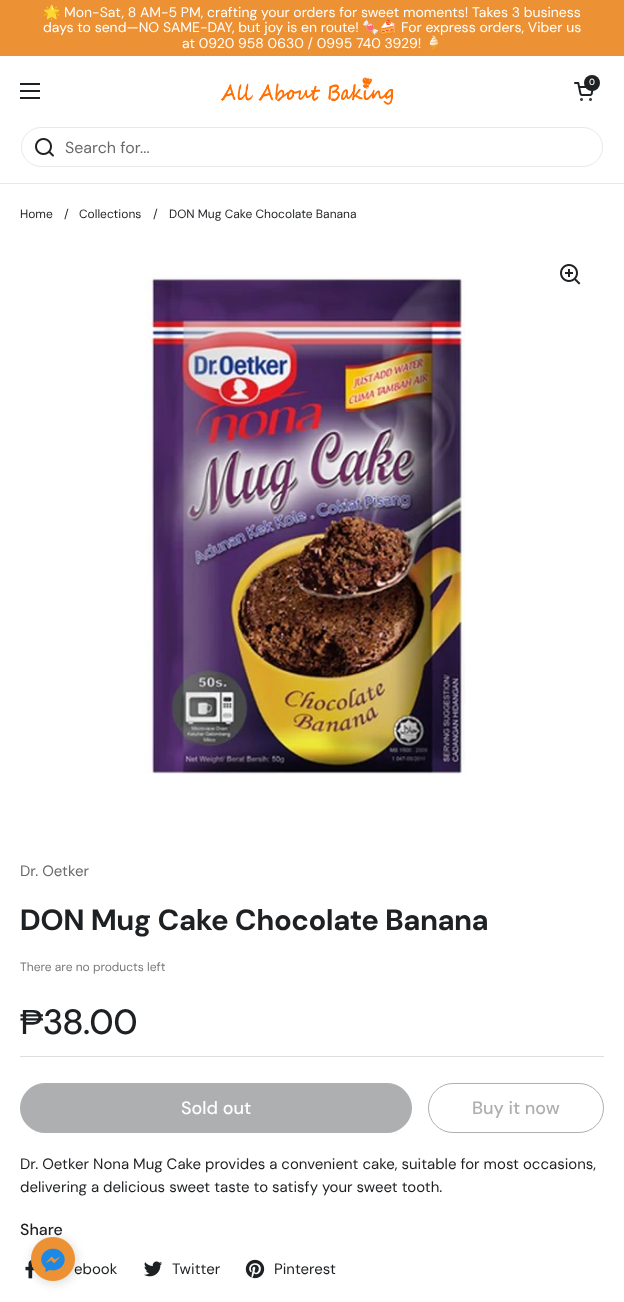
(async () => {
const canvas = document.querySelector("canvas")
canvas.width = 624
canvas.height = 1302
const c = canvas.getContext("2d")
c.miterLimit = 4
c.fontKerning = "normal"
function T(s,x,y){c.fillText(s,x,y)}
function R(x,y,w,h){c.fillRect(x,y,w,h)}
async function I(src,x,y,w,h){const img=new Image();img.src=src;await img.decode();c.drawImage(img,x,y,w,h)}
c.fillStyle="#fff"
R(0,0,624,1302)
c.fillStyle="#ec9234"
R(0,0,624,56)
c.font="14px Noto Color Emoji"
c.fillStyle="#fff"
T("🌟",43,17)
c.font="14px DM Sans"
T("Mon-Sat, 8 AM-5 PM, crafting your orders for sweet moments! Takes 3 business",64,17)
T("days to send—NO SAME-DAY, but joy is en route!",43,32)
c.font="14px Noto Color Emoji"
T("🍬🍰",362,32)
c.font="14px DM Sans"
T("For express orders, Viber us",401,32)
T("at 0920 958 0630 / 0995 740 3929!",182,48)
c.font="14px Noto Color Emoji"
T("🍦",425,48)
await I("1.png",221,77,173,28)
await I("2.png",574,82,20,19)
c.fillStyle="#1e2124"
c.beginPath()
c.arc(592,83,8,0,7)
c.fill()
c.font="500 9px 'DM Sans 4'"
c.fillStyle="#fff"
T("0",589,85)
c.fillStyle="#1e2124"
R(20,83,20,2)
R(20,90,20,2)
R(20,97,20,2)
c.fillStyle="#e9e9e9"
R(0,183,624,1)
c.beginPath()
c.roundRect(21.5,127.5,581,39,19.5)
c.strokeStyle="#e9e9e9"
c.stroke()
await I("3.png",35,138,19,19)
c.font="16px 'DM Sans 4'"
c.fillStyle="#6a6a6a"
T("Search for...",65,153)
c.font="12px 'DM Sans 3'"
c.fillStyle="#1e2124"
T("Home",20,218)
T("/",64,218)
T("Collections",79,218)
T("/",153,218)
T("DON Mug Cake Chocolate Banana",169,218)
await I("4.png",144,275,322,499)
await I("5.png",560,264,21,21)
c.font="15px 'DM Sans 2'"
c.fillStyle="#6a6a6a"
T("Dr. Oetker",20,876)
c.font="bold 29.3px DM Sans"
c.fillStyle="#1e2124"
T("DON Mug Cake Chocolate Banana",20,930)
c.font="12px 'DM Sans 3'"
c.fillStyle="#787a7c"
T("There are no products left",20,971)
c.font="35px Liberation Sans"
c.fillStyle="#1e2124"
T("₱",20,1034)
c.font="500 35px DM Sans"
T("38.00",43,1034)
c.fillStyle="#dddede"
R(20,1056,584,1)
c.fillStyle="#aeafb0"
c.beginPath()
c.roundRect(20.5,1083.5,391,49,24.5)
c.fill()
c.strokeStyle="#aeafb0"
c.stroke()
c.font="500 18px 'DM Sans 3'"
c.fillStyle="#fff"
T("Sold out",181,1114)
c.beginPath()
c.roundRect(428.5,1083.5,175,49,24.5)
c.stroke()
c.fillStyle="#aeafb0"
T("Buy it now",472,1114)
c.font="15px 'DM Sans 2'"
c.fillStyle="#1e2124"
T("Dr. Oetker Nona Mug Cake provides a convenient cake, suitable for most occasions,",20,1169)
T("delivering a delicious sweet taste to satisfy your sweet tooth.",20,1192)
c.font="500 16px 'DM Sans 2'"
T("Share",20,1235)
await I("6.png",25,1260,10,19)
c.font="15px 'DM Sans 2'"
T("ebook",74,1274)
await I("7.png",144,1261,18,16)
T("Twitter",172,1274)
await I("8.png",245,1259,20,20)
T("Pinterest",274,1274)
c.fillStyle="#00000012"
c.filter="blur(4.5px)"
c.beginPath()
c.roundRect(31,1237,48,48,24)
c.fill()
c.filter="none"
c.fillStyle="#0000000d"
c.filter="blur(5px)"
c.beginPath()
c.roundRect(31,1239,44,44,22)
c.fill()
c.filter="none"
await I("9.png",31,1237,44,44)
})()
